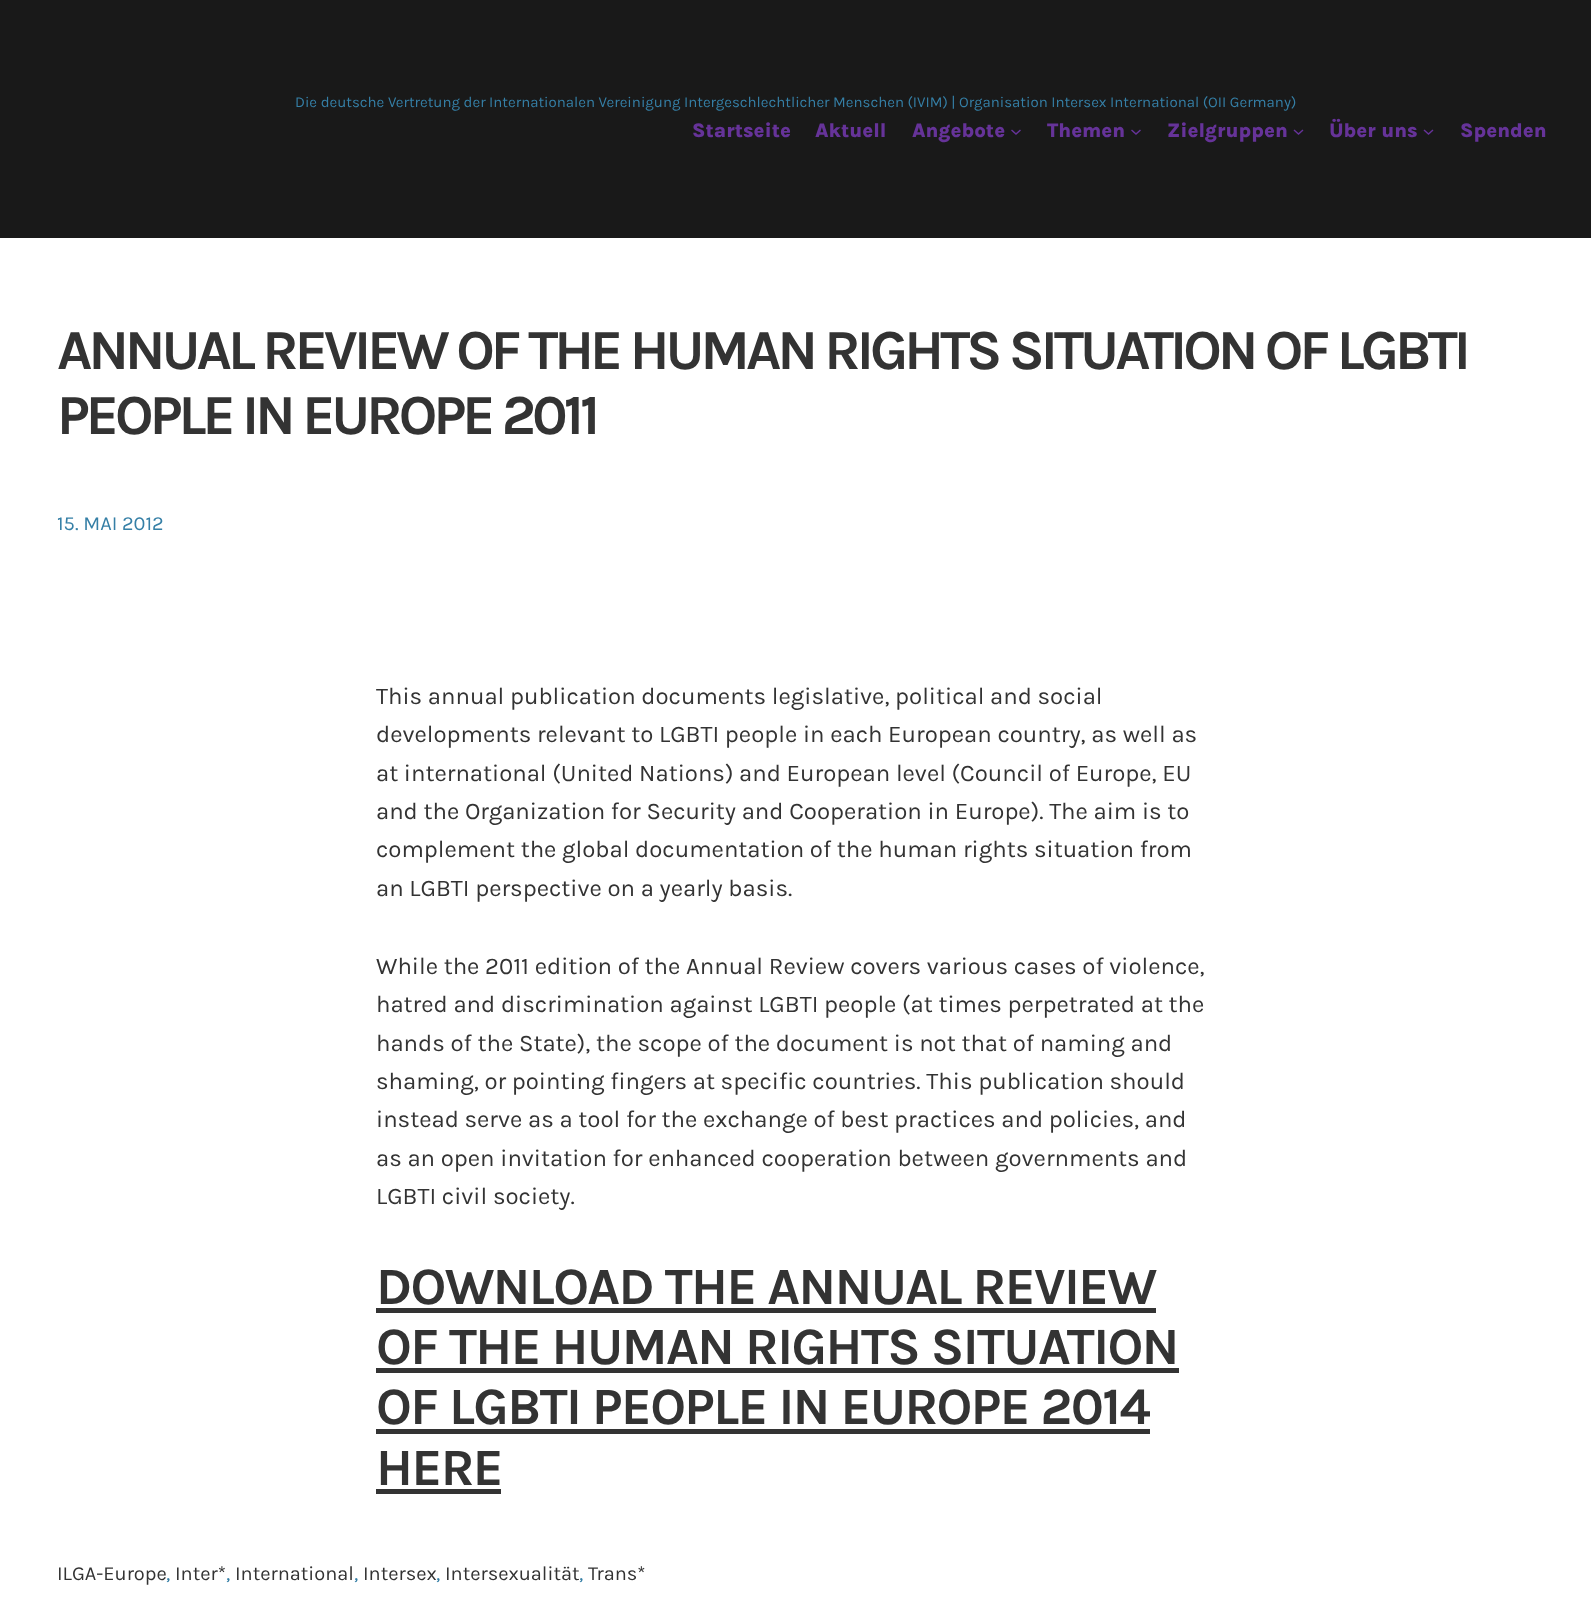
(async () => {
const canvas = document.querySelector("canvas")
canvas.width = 1591
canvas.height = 1616
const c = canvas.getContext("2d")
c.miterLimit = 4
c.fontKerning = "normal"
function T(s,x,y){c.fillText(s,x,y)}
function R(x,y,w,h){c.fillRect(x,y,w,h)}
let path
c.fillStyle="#fff"
R(0,0,1591,1616)
c.fillStyle="#191919"
R(0,0,1591,238)
c.font="15px Karla"
c.fillStyle="#357fa6"
T("Die deutsche Vertretung der Internationalen Vereinigung Intergeschlechtlicher Menschen (IVIM) | Organisation Intersex International (OII Germany)",295,107)
c.font="800 20px Karla"
c.fillStyle="#639"
T("Startseite",692,137)
T("Aktuell",815,137)
T("Angebote",912,137)
path = new Path2D("M1011.5 130l4.5 4l4.5-4")
c.strokeStyle="#639"
c.lineWidth=1.5
c.stroke(path)
T("Themen",1047,137)
path = new Path2D("M1131.5 130l4.5 4l4.5-4")
c.stroke(path)
T("Zielgruppen",1167,137)
path = new Path2D("M1294 130l4.5 4l4.5-4")
c.stroke(path)
T("Über uns",1329,137)
path = new Path2D("M1424 130l4.5 4l4.5-4")
c.stroke(path)
T("Spenden",1460,137)
c.letterSpacing="-3.95px"
c.font="bold 56.5px Karla"
c.fillStyle="#333"
T("ANNUAL REVIEW OF THE HUMAN RIGHTS SITUATION OF LGBTI",57,369)
T("PEOPLE IN EUROPE 2011",57,434)
c.letterSpacing="0px"
c.font="20px Karla"
c.fillStyle="#357fa6"
T("15. MAI 2012",57,530)
c.font="23.95px Karla"
c.fillStyle="#333"
T("This annual publication documents legislative, political and social",376,704)
T("developments relevant to LGBTI people in each European country, as well as",376,742)
T("at international (United Nations) and European level (Council of Europe, EU",376,781)
T("and the Organization for Security and Cooperation in Europe). The aim is to",376,819)
T("complement the global documentation of the human rights situation from",376,857)
T("an LGBTI perspective on a yearly basis.",376,896)
T("While the 2011 edition of the Annual Review covers various cases of violence,",376,974)
T("hatred and discrimination against LGBTI people (at times perpetrated at the",376,1012)
T("hands of the State), the scope of the document is not that of naming and",376,1051)
T("shaming, or pointing fingers at specific countries. This publication should",376,1089)
T("instead serve as a tool for the exchange of best practices and policies, and",376,1127)
T("as an open invitation for enhanced cooperation between governments and",376,1166)
T("LGBTI civil society.",376,1204)
c.letterSpacing="-1.6px"
c.font="bold 52.5px Karla"
T("DOWNLOAD THE ANNUAL REVIEW",376,1304)
R(376,1308,780,5)
T("OF THE HUMAN RIGHTS SITUATION",376,1364)
R(376,1368,803,5)
T("OF LGBTI PEOPLE IN EUROPE 2014",376,1424)
R(376,1429,774,5)
T("HERE",376,1485)
R(376,1489,125,5)
c.letterSpacing="0px"
c.font="20px Karla"
T("ILGA-Europe",57,1580)
c.fillStyle="#357fa6"
T(",",166,1580)
c.fillStyle="#333"
T("Inter*",175,1580)
c.fillStyle="#357fa6"
T(",",226,1580)
c.fillStyle="#333"
T("International",235,1580)
c.fillStyle="#357fa6"
T(",",354,1580)
c.fillStyle="#333"
T("Intersex",363,1580)
c.fillStyle="#357fa6"
T(",",436,1580)
c.fillStyle="#333"
T("Intersexualität",445,1580)
c.fillStyle="#357fa6"
T(",",579,1580)
c.fillStyle="#333"
T("Trans*",588,1580)
})()
